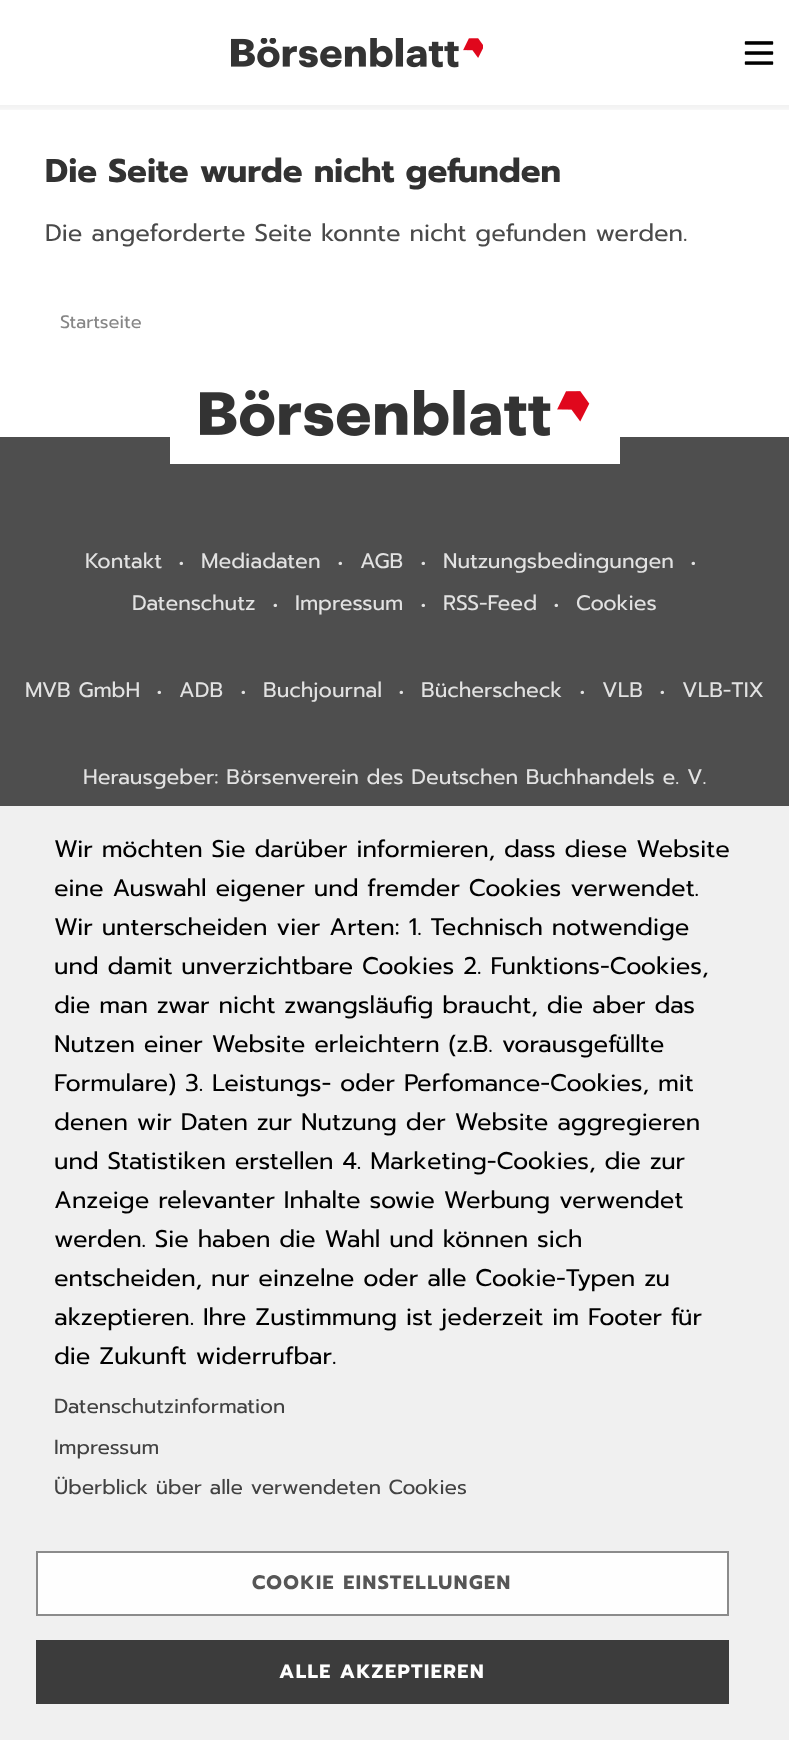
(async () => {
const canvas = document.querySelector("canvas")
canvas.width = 789
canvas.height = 1740
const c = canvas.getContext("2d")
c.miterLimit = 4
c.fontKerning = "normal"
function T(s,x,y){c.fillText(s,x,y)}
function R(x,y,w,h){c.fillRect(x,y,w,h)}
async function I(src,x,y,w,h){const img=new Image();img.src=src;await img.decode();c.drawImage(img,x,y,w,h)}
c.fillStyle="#fff"
R(0,0,789,1740)
c.save()
c.beginPath()
c.rect(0,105,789,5)
c.clip()
c.fillStyle="#0000000d"
c.filter="blur(2px)"
c.beginPath()
c.rect(-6,5,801,105)
c.fill()
c.filter="none"
c.restore()
await I("1.png",231,38,252,30)
await I("2.png",744,41,30,24)
c.font="bold 33px Prompt"
c.fillStyle="#323232"
T("Die Seite wurde nicht gefunden",45,182)
c.font="24px Prompt"
c.fillStyle="#4a4a4a"
T("Die angeforderte Seite konnte nicht gefunden werden.",45,241)
c.font="18px Prompt"
c.fillStyle="#868686"
T("Startseite",60,328)
c.fillStyle="#4e4e4e"
R(0,437,789,369)
c.fillStyle="#fff"
R(170,437,450,27)
await I("3.png",200,390,390,47)
c.font="21px Prompt"
c.fillStyle="#e2e2e2"
T("Kontakt",85,568)
c.font="36px Prompt"
T("·",178,574)
c.font="21px Prompt"
T("Mediadaten",201,568)
c.font="36px Prompt"
T("·",337,574)
c.font="21px Prompt"
T("AGB",360,568)
c.font="36px Prompt"
T("·",420,574)
c.font="21px Prompt"
T("Nutzungsbedingungen",443,568)
c.font="36px Prompt"
T("·",690,574)
c.font="21px Prompt"
T("Datenschutz",132,610)
c.font="36px Prompt"
T("·",272,616)
c.font="21px Prompt"
T("Impressum",295,610)
c.font="36px Prompt"
T("·",420,616)
c.font="21px Prompt"
T("RSS-Feed",443,610)
c.font="36px Prompt"
T("·",553,616)
c.font="21px Prompt"
T("Cookies",576,610)
T("MVB GmbH",25,697)
c.font="36px Prompt"
T("·",156,703)
c.font="21px Prompt"
T("ADB",179,697)
c.font="36px Prompt"
T("·",240,703)
c.font="21px Prompt"
T("Buchjournal",263,697)
c.font="36px Prompt"
T("·",398,703)
c.font="21px Prompt"
T("Bücherscheck",421,697)
c.font="36px Prompt"
T("·",579,703)
c.font="21px Prompt"
T("VLB",602,697)
c.font="36px Prompt"
T("·",659,703)
c.font="21px Prompt"
T("VLB-TIX",682,697)
T("Herausgeber: Börsenverein des Deutschen Buchhandels e. V.",83,784)
c.fillStyle="#f0f0f0"
R(0,806,789,934)
c.font="24px Prompt"
c.fillStyle="#000"
T("Wir möchten Sie darüber informieren, dass diese Website",54,857)
T("eine Auswahl eigener und fremder Cookies verwendet.",54,896)
T("Wir unterscheiden vier Arten: 1. Technisch notwendige",54,935)
T("und damit unverzichtbare Cookies 2. Funktions-Cookies,",54,974)
T("die man zwar nicht zwangsläufig braucht, die aber das",54,1013)
T("Nutzen einer Website erleichtern (z.B. vorausgefüllte",54,1052)
T("Formulare) 3. Leistungs- oder Perfomance-Cookies, mit",54,1091)
T("denen wir Daten zur Nutzung der Website aggregieren",54,1130)
T("und Statistiken erstellen 4. Marketing-Cookies, die zur",54,1169)
T("Anzeige relevanter Inhalte sowie Werbung verwendet",54,1208)
T("werden. Sie haben die Wahl und können sich",54,1247)
T("entscheiden, nur einzelne oder alle Cookie-Typen zu",54,1286)
T("akzeptieren. Ihre Zustimmung ist jederzeit im Footer für",54,1325)
T("die Zukunft widerrufbar.",54,1364)
c.font="20.4px Prompt"
c.fillStyle="#424242"
T("Datenschutzinformation",54,1413)
T("Impressum",54,1454)
T("Überblick über alle verwendeten Cookies",54,1494)
c.fillStyle="#fefefe"
c.beginPath()
c.rect(37,1552,691,63)
c.fill()
c.strokeStyle="#8b8b8b"
c.lineWidth=2
c.stroke()
c.letterSpacing="1.5px"
c.font="bold 19.5px Prompt"
c.fillStyle="#565656"
T("COOKIE EINSTELLUNGEN",252,1589)
c.fillStyle="#3c3c3c"
R(36,1640,693,64)
c.fillStyle="#fefefe"
T("ALLE AKZEPTIEREN",279,1678)
})()
